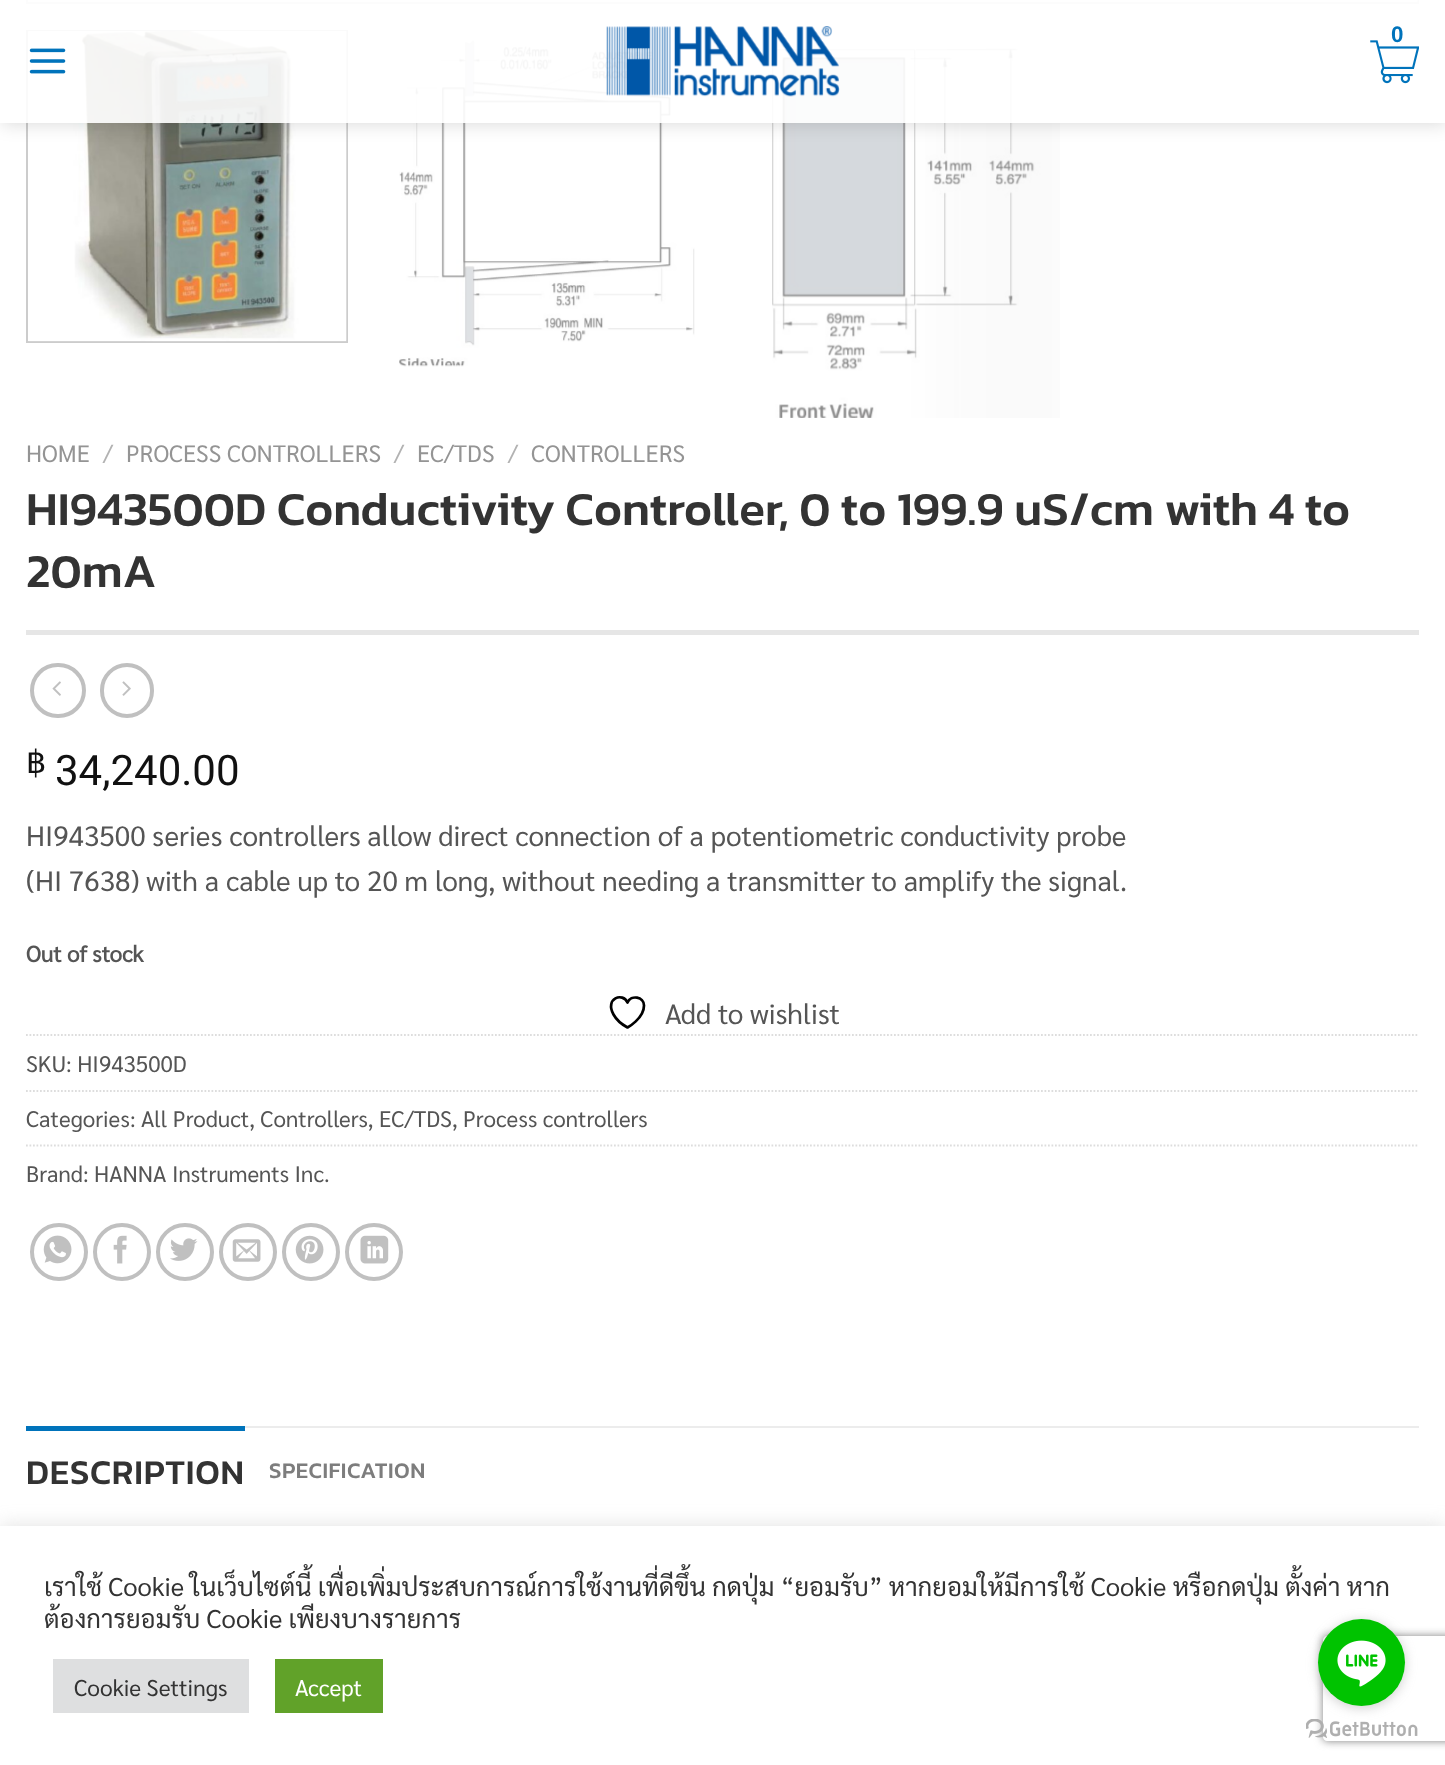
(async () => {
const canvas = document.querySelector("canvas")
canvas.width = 1445
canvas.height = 1765
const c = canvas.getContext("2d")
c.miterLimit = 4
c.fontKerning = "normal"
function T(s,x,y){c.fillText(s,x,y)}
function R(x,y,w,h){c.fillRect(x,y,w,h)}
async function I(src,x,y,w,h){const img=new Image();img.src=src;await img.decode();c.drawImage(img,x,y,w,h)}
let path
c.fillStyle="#fff"
R(0,0,1445,1765)
c.strokeStyle="#ddd"
c.lineWidth=2
c.strokeRect(27,-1,1391,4)
await I("4.png",1417,0,1,2)
c.strokeStyle="#ccc"
c.strokeRect(27,31,320,311)
await I("5.png",28,31,319,311)
await I("6.png",399,40,296,327)
await I("7.png",772,31,288,387)
c.save()
path = new Path2D("M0 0h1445v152h-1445zm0 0h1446v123h-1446z")
c.clip(path,"evenodd")
c.fillStyle="#00000026"
c.filter="blur(9px)"
c.beginPath()
c.rect(2,2,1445,122)
c.fill()
c.filter="none"
c.restore()
c.fillStyle="#ffffffe6"
R(0,0,1445,123)
await I("1.png",606,26,234,71)
await I("2.png",1370,40,49,44)
c.font="bold 22.4px Liberation Sans"
c.fillStyle="#0073bb"
T("0",1391,42)
await I("3.png",29,48,37,26)
c.font="23.75px Sarabun"
c.fillStyle="#949494"
T("HOME",26,462)
c.fillStyle="#b2b2b2"
T("/",103,462)
c.fillStyle="#949494"
T("PROCESS CONTROLLERS",126,462)
c.fillStyle="#b2b2b2"
T("/",394,462)
c.fillStyle="#949494"
T("EC/TDS",417,462)
c.fillStyle="#b2b2b2"
T("/",508,462)
c.fillStyle="#949494"
T("CONTROLLERS",531,462)
c.font="500 47.6px Kanit"
c.fillStyle="#333"
T("HI943500D Conductivity Controller, 0 to 199.9 uS/cm with 4 to",26,525)
T("20mA",26,587)
c.fillStyle="#e6e6e6"
R(26,630,1393,5)
c.beginPath()
c.roundRect(32,665,52,51,25.5)
c.strokeStyle="#c0c0c0"
c.lineWidth=4
c.stroke()
await I("8.png",52,681,9,15)
c.beginPath()
c.roundRect(102,665,50,51,25)
c.stroke()
await I("9.png",122,681,9,15)
c.font="32px DejaVu Sans"
c.fillStyle="#111"
T("฿",26,773)
c.font="42px Roboto"
T("34,240.00",55,785)
c.font="28px Sarabun"
c.fillStyle="#555"
T("HI943500 series controllers allow direct connection of a potentiometric conductivity probe",26,846)
T("(HI 7638) with a cable up to 20 m long, without needing a transmitter to amplify the signal.",26,891)
c.font="bold 22.4px Sarabun"
T("Out of stock",26,962)
path = new Path2D("M644 1005.5c0-9-13-11-16.5-3c-4.5-10.5-23-4.5-14 12c3 5.5 8.5 10 14 13c0 0 16.5-9 16.5-22z")
c.strokeStyle="#000"
c.lineWidth=2.7
c.lineCap="round"
c.lineJoin="round"
c.stroke(path)
c.font="28px Sarabun"
T("Add to wishlist",665,1024)
path = new Path2D("M26 1035h1393")
c.strokeStyle="#ddd"
c.lineWidth=1.8
c.lineCap="butt"
c.lineJoin="miter"
c.setLineDash([1.75,1.75])
c.stroke(path)
c.font="22.4px Sarabun"
T("SKU: HI943500D",26,1072)
path = new Path2D("M26 1091h1393")
c.stroke(path)
T("Categories: All Product, Controllers, EC/TDS, Process controllers",26,1127)
path = new Path2D("M26 1145.5h1393")
c.stroke(path)
T("Brand: HANNA Instruments Inc.",26,1182)
c.beginPath()
c.arc(59,1252,27,0,7)
c.strokeStyle="#c0c0c0"
c.lineWidth=4
c.setLineDash([])
c.stroke()
await I("10.png",43,1235,29,29)
c.beginPath()
c.arc(122,1252,27,0,7)
c.stroke()
await I("11.png",113,1235,14,29)
c.beginPath()
c.arc(185,1252,27,0,7)
c.stroke()
await I("12.png",170,1238,28,23)
c.beginPath()
c.arc(248,1252,27,0,7)
c.stroke()
await I("13.png",232,1239,29,23)
c.beginPath()
c.arc(311,1252,27,0,7)
c.stroke()
await I("14.png",295,1235,29,29)
c.beginPath()
c.arc(374,1252,27,0,7)
c.stroke()
await I("15.png",360,1235,29,29)
c.fillStyle="#ececec"
R(245,1426,1174,2)
c.fillStyle="#0073bb"
R(26,1426,219,5)
c.letterSpacing="0.75px"
c.font="500 35px Kanit"
c.fillStyle="#333"
T("DESCRIPTION",26,1484)
c.letterSpacing="0.5px"
c.font="500 22.4px Kanit"
c.fillStyle="#7d7d7d"
T("SPECIFICATION",269,1478)
c.fillStyle="#acabab4d"
c.filter="blur(9px)"
c.beginPath()
c.rect(0,1524,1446,240)
c.fill()
c.filter="none"
c.fillStyle="#fff"
R(0,1526,1445,239)
c.letterSpacing="0px"
c.font="25.67px Sarabun"
c.fillStyle="#333"
T("เราใช้ Cookie ในเว็บไซต์นี้ เพื่อเพิ่มประสบการณ์การใช้งานที่ดีขึ้น กดปุ่ม “ยอมรับ” หากยอมให้มีการใช้ Cookie หรือกดปุ่ม ตั้งค่า หาก",44,1596)
T("ต้องการยอมรับ Cookie เพียงบางรายการ",44,1628)
c.fillStyle="#dedfe0"
R(53,1659,196,54)
c.font="22.75px Sarabun"
c.fillStyle="#333"
T("Cookie Settings",74,1696)
c.fillStyle="#61a229"
R(275,1659,108,54)
c.fillStyle="#fff"
T("Accept",295,1696)
c.save()
path = new Path2D("M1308 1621h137v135h-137zm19 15h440c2 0 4 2 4 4v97c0 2-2 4-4 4h-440c-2 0-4-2-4-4v-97c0-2 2-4 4-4z")
c.clip(path,"evenodd")
c.fillStyle="#808080"
c.filter="blur(4.5px)"
c.beginPath()
c.roundRect(1323,1636,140,105,4)
c.fill()
c.filter="none"
c.restore()
await I("17.png",1306,1719,112,19)
c.fillStyle="#88888866"
c.filter="blur(6px)"
c.beginPath()
c.roundRect(1318,1621,87,87,43.5)
c.fill()
c.filter="none"
c.fillStyle="#00c300"
c.beginPath()
c.arc(1361.5,1662.5,43.5,0,7)
c.fill()
await I("16.png",1337,1640,49,47)
})()
